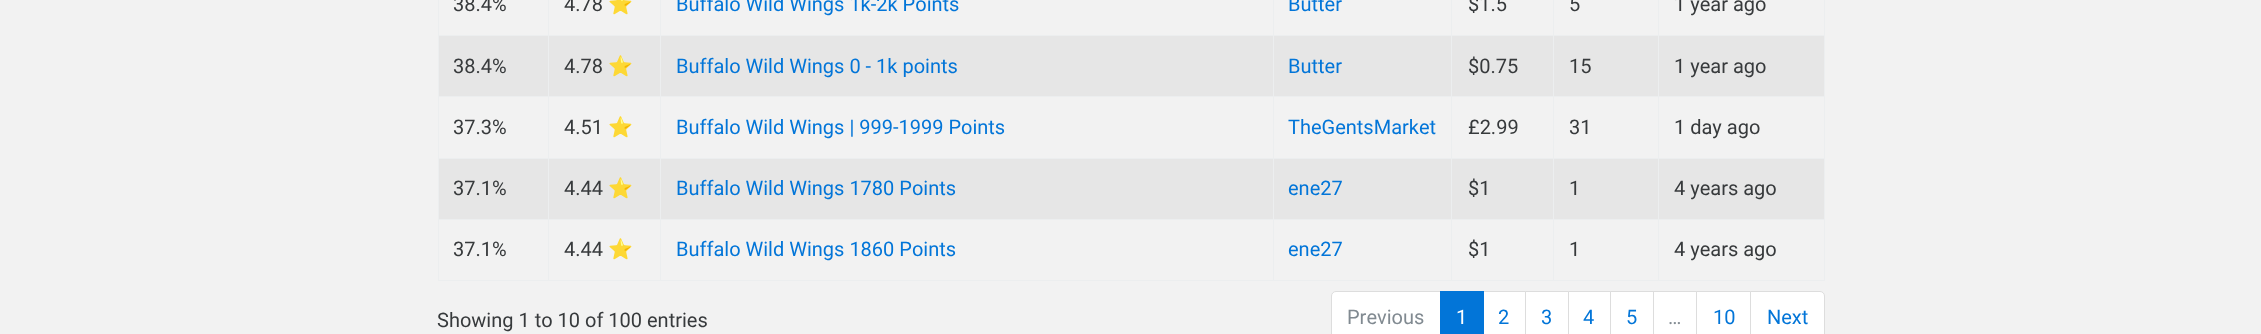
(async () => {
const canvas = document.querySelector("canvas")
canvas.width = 2261
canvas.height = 334
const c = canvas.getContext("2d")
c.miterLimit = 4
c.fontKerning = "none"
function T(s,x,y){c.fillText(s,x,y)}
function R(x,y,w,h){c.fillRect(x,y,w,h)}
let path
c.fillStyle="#f2f2f2"
R(0,0,2261,334)
c.strokeStyle="#eceeef"
c.strokeRect(438.5,-.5,1386,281)
c.fillStyle="#eceeef"
R(548,0,1,35)
c.font="20px Roboto"
c.fillStyle="#373a3c"
T("38.4%",453,11)
c.fillStyle="#eceeef"
R(660,0,1,35)
c.fillStyle="#373a3c"
T("4.78",564,11)
c.font="20px Noto Color Emoji"
T("⭐",608,11)
c.fillStyle="#eceeef"
R(1273,0,1,35)
c.font="20px Roboto"
c.fillStyle="#0275d8"
T("Buffalo Wild Wings 1k-2k Points",676,11)
c.fillStyle="#eceeef"
R(1451,0,1,35)
c.fillStyle="#0275d8"
T("Butter",1288,11)
c.fillStyle="#eceeef"
R(1553,0,1,35)
c.fillStyle="#373a3c"
T("$1.5",1468,11)
c.fillStyle="#eceeef"
R(1658,0,1,35)
c.fillStyle="#373a3c"
T("5",1569,11)
T("1 year ago",1674,11)
c.fillStyle="#e6e6e6"
R(439,36,1385,60)
c.fillStyle="#eceeef"
R(439,35,1385,1)
R(548,35,1,61)
c.fillStyle="#373a3c"
T("38.4%",453,73)
c.fillStyle="#eceeef"
R(660,35,1,61)
c.fillStyle="#373a3c"
T("4.78",564,73)
c.font="20px Noto Color Emoji"
T("⭐",608,73)
c.fillStyle="#eceeef"
R(1273,35,1,61)
c.font="20px Roboto"
c.fillStyle="#0275d8"
T("Buffalo Wild Wings 0 - 1k points",676,73)
c.fillStyle="#eceeef"
R(1451,35,1,61)
c.fillStyle="#0275d8"
T("Butter",1288,73)
c.fillStyle="#eceeef"
R(1553,35,1,61)
c.fillStyle="#373a3c"
T("$0.75",1468,73)
c.fillStyle="#eceeef"
R(1658,35,1,61)
c.fillStyle="#373a3c"
T("15",1569,73)
T("1 year ago",1674,73)
c.fillStyle="#eceeef"
R(439,96,1385,1)
R(548,96,1,62)
c.fillStyle="#373a3c"
T("37.3%",453,134)
c.fillStyle="#eceeef"
R(660,96,1,62)
c.fillStyle="#373a3c"
T("4.51",564,134)
c.font="20px Noto Color Emoji"
T("⭐",608,134)
c.fillStyle="#eceeef"
R(1273,96,1,62)
c.font="20px Roboto"
c.fillStyle="#0275d8"
T("Buffalo Wild Wings | 999-1999 Points",676,134)
c.fillStyle="#eceeef"
R(1451,96,1,62)
c.fillStyle="#0275d8"
T("TheGentsMarket",1288,134)
c.fillStyle="#eceeef"
R(1553,96,1,62)
c.fillStyle="#373a3c"
T("£2.99",1468,134)
c.fillStyle="#eceeef"
R(1658,96,1,62)
c.fillStyle="#373a3c"
T("31",1569,134)
T("1 day ago",1674,134)
c.fillStyle="#e6e6e6"
R(439,159,1385,60)
c.fillStyle="#eceeef"
R(439,158,1385,1)
R(548,158,1,61)
c.fillStyle="#373a3c"
T("37.1%",453,195)
c.fillStyle="#eceeef"
R(660,158,1,61)
c.fillStyle="#373a3c"
T("4.44",564,195)
c.font="20px Noto Color Emoji"
T("⭐",608,195)
c.fillStyle="#eceeef"
R(1273,158,1,61)
c.font="20px Roboto"
c.fillStyle="#0275d8"
T("Buffalo Wild Wings 1780 Points",676,195)
c.fillStyle="#eceeef"
R(1451,158,1,61)
c.fillStyle="#0275d8"
T("ene27",1288,195)
c.fillStyle="#eceeef"
R(1553,158,1,61)
c.fillStyle="#373a3c"
T("$1",1468,195)
c.fillStyle="#eceeef"
R(1658,158,1,61)
c.fillStyle="#373a3c"
T("1",1569,195)
T("4 years ago",1674,195)
c.fillStyle="#eceeef"
R(439,219,1385,1)
R(548,219,1,61)
c.fillStyle="#373a3c"
T("37.1%",453,256)
c.fillStyle="#eceeef"
R(660,219,1,61)
c.fillStyle="#373a3c"
T("4.44",564,256)
c.font="20px Noto Color Emoji"
T("⭐",608,256)
c.fillStyle="#eceeef"
R(1273,219,1,61)
c.font="20px Roboto"
c.fillStyle="#0275d8"
T("Buffalo Wild Wings 1860 Points",676,256)
c.fillStyle="#eceeef"
R(1451,219,1,61)
c.fillStyle="#0275d8"
T("ene27",1288,256)
c.fillStyle="#eceeef"
R(1553,219,1,61)
c.fillStyle="#373a3c"
T("$1",1468,256)
c.fillStyle="#eceeef"
R(1658,219,1,61)
c.fillStyle="#373a3c"
T("1",1569,256)
T("4 years ago",1674,256)
T("Showing 1 to 10 of 100 entries",437,327)
c.fillStyle="#fff"
path = new Path2D("M1336 291.5h104.5v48h-104.5c-2.5 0-4.5-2-4.5-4.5v-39c0-2.5 2-4.5 4.5-4.5z")
c.fill(path)
c.strokeStyle="#ddd"
c.stroke(path)
c.fillStyle="#818a91"
T("Previous",1347,324)
c.fillStyle="#fff"
c.beginPath()
c.rect(1483.5,291.5,42,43)
c.fill()
c.stroke()
c.fillStyle="#0275d8"
R(1440,291,44,43)
c.fillStyle="#fff"
T("1",1456,324)
c.fillStyle="#0275d8"
T("2",1498,324)
c.fillStyle="#fff"
c.beginPath()
c.rect(1525.5,291.5,43,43)
c.fill()
c.stroke()
c.fillStyle="#0275d8"
T("3",1541,324)
c.fillStyle="#fff"
c.beginPath()
c.rect(1568.5,291.5,42,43)
c.fill()
c.stroke()
c.fillStyle="#0275d8"
T("4",1583,324)
c.fillStyle="#fff"
c.beginPath()
c.rect(1610.5,291.5,43,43)
c.fill()
c.stroke()
c.fillStyle="#0275d8"
T("5",1626,324)
c.fillStyle="#fff"
R(1654,292,42,42)
c.strokeRect(1653.5,291.5,44,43)
c.fillStyle="#818a91"
T("…",1668,324)
c.fillStyle="#fff"
c.beginPath()
c.rect(1696.5,291.5,54,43)
c.fill()
c.stroke()
c.fillStyle="#0275d8"
T("10",1713,324)
c.fillStyle="#fff"
path = new Path2D("M1750.5 291.5h69.5c2.5 0 4.5 2 4.5 4.5v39c0 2.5-2 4.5-4.5 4.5h-69.5z")
c.fill(path)
c.stroke(path)
c.fillStyle="#0275d8"
T("Next",1767,324)
})()
